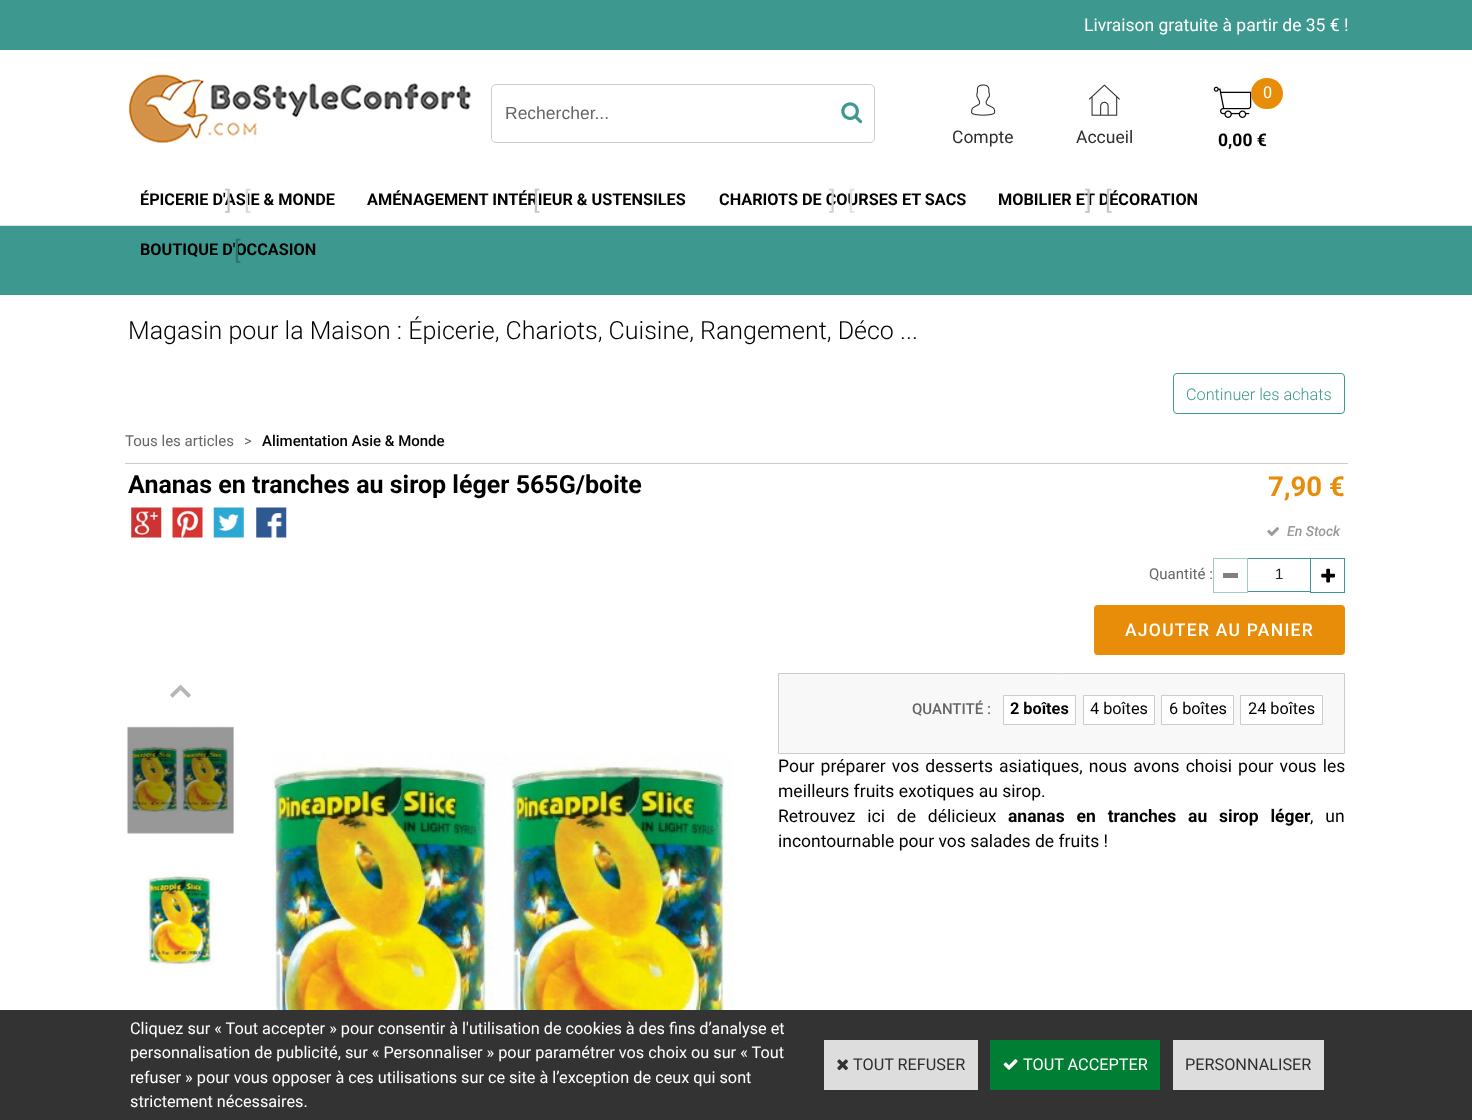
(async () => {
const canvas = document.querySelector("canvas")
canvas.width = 1472
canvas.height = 1120
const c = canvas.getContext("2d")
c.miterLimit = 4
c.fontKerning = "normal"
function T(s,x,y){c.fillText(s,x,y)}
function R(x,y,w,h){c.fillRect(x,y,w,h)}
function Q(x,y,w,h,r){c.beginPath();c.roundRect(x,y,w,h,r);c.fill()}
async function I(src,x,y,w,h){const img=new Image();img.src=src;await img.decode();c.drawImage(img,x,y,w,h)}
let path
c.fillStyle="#3d998f"
R(0,0,1472,1120)
c.fillStyle="#fff"
R(0,50,1472,175)
c.fillStyle="#e2e2e2"
R(0,225,1472,1)
c.font="17.5px Roboto"
c.fillStyle="#fff"
T("Livraison gratuite à partir de 35 € !",1084,31)
await I("1.png",128,74,344,69)
c.beginPath()
c.roundRect(491.5,84.5,383,58,4.5)
c.strokeStyle="#ccc"
c.stroke()
c.font="17.5px Liberation Sans"
c.fillStyle="#666"
T("Rechercher...",505,119)
await I("2.png",841,102,22,22)
await I("3.png",971,84,25,32)
c.font="17.5px Roboto"
c.fillStyle="#2e2e2e"
T("Compte",952,143)
await I("4.png",1088,84,32,32)
T("Accueil",1076,143)
await I("5.png",1213,86,39,32)
c.fillStyle="#e88d0a"
Q(1251,78,32,31,15.5)
c.font="16.25px Roboto"
c.fillStyle="#fff"
T("0",1263,98)
c.font="bold 17.5px Roboto"
c.fillStyle="#000"
T("0,00 €",1218,146)
c.font="bold 16.25px Roboto"
T("ÉPICERIE D'ASIE & MONDE",140,205)
c.font="25px Roboto"
c.fillStyle="#c6c6c6"
T("]",225,209)
c.fillStyle="#d9d9d9"
T("[",244,209)
c.font="bold 16.25px Roboto"
c.fillStyle="#000"
T("AMÉNAGEMENT INTÉRIEUR & USTENSILES",367,205)
c.font="25px Roboto"
c.fillStyle="#c6c6c6"
T("[",533,209)
c.font="bold 16.25px Roboto"
c.fillStyle="#000"
T("CHARIOTS DE COURSES ET SACS",719,205)
c.font="25px Roboto"
c.fillStyle="#d1d1d1"
T("]",829,209)
c.fillStyle="#e1e1e1"
T("[",848,209)
c.font="bold 16.25px Roboto"
c.fillStyle="#000"
T("MOBILIER ET DÉCORATION",998,205)
c.font="25px Roboto"
c.fillStyle="#c6c6c6"
T("]",1085,209)
T("[",1105,209)
c.font="bold 16.25px Roboto"
c.fillStyle="#000"
T("BOUTIQUE D'OCCASION",140,255)
c.font="25px Roboto"
c.fillStyle="#2d726a"
T("[",234,259)
c.fillStyle="#fff"
R(0,295,1472,715)
c.font="300 25px Roboto"
c.fillStyle="#000"
T("Magasin pour la Maison : Épicerie, Chariots, Cuisine, Rangement, Déco ...",128,339)
c.beginPath()
c.roundRect(1173.5,373.5,171,40,3.5)
c.strokeStyle="#3d998f"
c.stroke()
c.font="300 16.25px Roboto"
c.fillStyle="#3d998f"
T("Continuer les achats",1186,400)
c.font="15px Roboto"
c.fillStyle="#666"
T("Tous les articles",125,446)
T(">",244,446)
c.font="500 15px Roboto"
c.fillStyle="#000"
T("Alimentation Asie & Monde",262,446)
c.fillStyle="#ccc"
R(125,463,1223,1)
c.font="bold 25px Roboto"
c.fillStyle="#000"
T("Ananas en tranches au sirop léger 565G/boite",128,493)
await I("6.png",131,507,31,31)
await I("7.png",172,507,31,31)
await I("8.png",213,507,31,31)
await I("9.png",256,507,31,31)
c.font="bold 27.5px Roboto"
c.fillStyle="#e88d0a"
T("7,90 €",1268,496)
await I("10.png",1267,527,12,10)
c.font="italic 500 14px Roboto"
c.fillStyle="#999"
T("En Stock",1287,536)
c.font="15px Roboto"
c.fillStyle="#666"
T("Quantité :",1149,579)
c.strokeStyle="#9eccc7"
c.strokeRect(1213.5,558.5,34,34)
c.fillStyle="#808080"
R(1223,573,15,5)
c.fillStyle="#3d998f"
R(1248,558,62,1)
R(1248,591,62,1)
c.font="15px Liberation Sans"
c.fillStyle="#212121"
T("1",1275,579)
c.strokeStyle="#3d998f"
c.strokeRect(1310.5,558.5,34,34)
await I("11.png",1321,568,14,15)
c.fillStyle="#e88d0a"
Q(1094,605,251,50,4)
c.letterSpacing="1.25px"
c.font="500 17.5px Roboto"
c.fillStyle="#fff"
T("AJOUTER AU PANIER",1125,636)
c.fillStyle="#b5b6b9"
path = new Path2D("M180.5 684.5l10.5 10.5l-2.5 3l-8-8z")
c.fill(path)
c.fillStyle="#83858b99"
path = new Path2D("M170 695l10.5-10.5v5.5l-8 8z")
c.fill(path)
await I("12.png",127,726,107,108)
await I("13.png",146,871,70,95)
await I("14.png",272,753,461,257)
c.fillStyle="#f8f8f8"
c.beginPath()
c.rect(778.5,673.5,566,80)
c.fill()
c.strokeStyle="#ccc"
c.stroke()
c.letterSpacing="0px"
c.font="500 15px Roboto"
c.fillStyle="#666"
T("QUANTITÉ :",912,714)
c.fillStyle="#fff"
c.beginPath()
c.rect(1003.5,695.5,72,29)
c.fill()
c.stroke()
c.font="bold 16.25px Roboto"
c.fillStyle="#000"
T("2 boîtes",1010,714)
c.fillStyle="#fff"
c.beginPath()
c.rect(1083.5,695.5,71,29)
c.fill()
c.stroke()
c.font="16.25px Roboto"
c.fillStyle="#000"
T("4 boîtes",1090,714)
c.fillStyle="#fff"
c.beginPath()
c.rect(1161.5,695.5,72,29)
c.fill()
c.stroke()
c.fillStyle="#000"
T("6 boîtes",1169,714)
c.fillStyle="#fff"
c.beginPath()
c.rect(1240.5,695.5,82,29)
c.fill()
c.stroke()
c.fillStyle="#000"
T("24 boîtes",1248,714)
c.wordSpacing="1.75px"
c.font="17.5px Roboto"
T("Pour préparer vos desserts asiatiques, nous avons choisi pour vous les",778,772)
c.wordSpacing="0px"
T("meilleurs fruits exotiques au sirop.",778,797)
c.wordSpacing="7.5px"
T("Retrouvez ici de délicieux",778,822)
c.font="bold 17.5px Roboto"
T("ananas en tranches au sirop léger",1008,822)
c.font="17.5px Roboto"
T(", un",1310,822)
c.wordSpacing="0px"
T("incontournable pour vos salades de fruits !",778,847)
c.fillStyle="#333"
R(0,1010,1472,110)
c.font="16.25px Roboto"
c.fillStyle="#fff"
T("Cliquez sur « Tout accepter » pour consentir à l'utilisation de cookies à des fins d’analyse et",130,1034)
T("personnalisation de publicité, sur « Personnaliser » pour paramétrer vos choix ou sur « Tout",130,1058)
T("refuser » pour vous opposer à ces utilisations sur ce site à l’exception de ceux qui sont",130,1083)
T("strictement nécessaires.",130,1107)
c.fillStyle="#ddd"
R(824,1040,154,50)
await I("15.png",837,1059,11,12)
c.fillStyle="#2e2e2e"
T("TOUT REFUSER",853,1070)
c.fillStyle="#007e33"
R(990,1040,170,50)
await I("16.png",1003,1059,15,11)
c.fillStyle="#fff"
T("TOUT ACCEPTER",1023,1070)
c.fillStyle="#ddd"
R(1173,1040,151,50)
c.fillStyle="#2e2e2e"
T("PERSONNALISER",1185,1070)
})()
